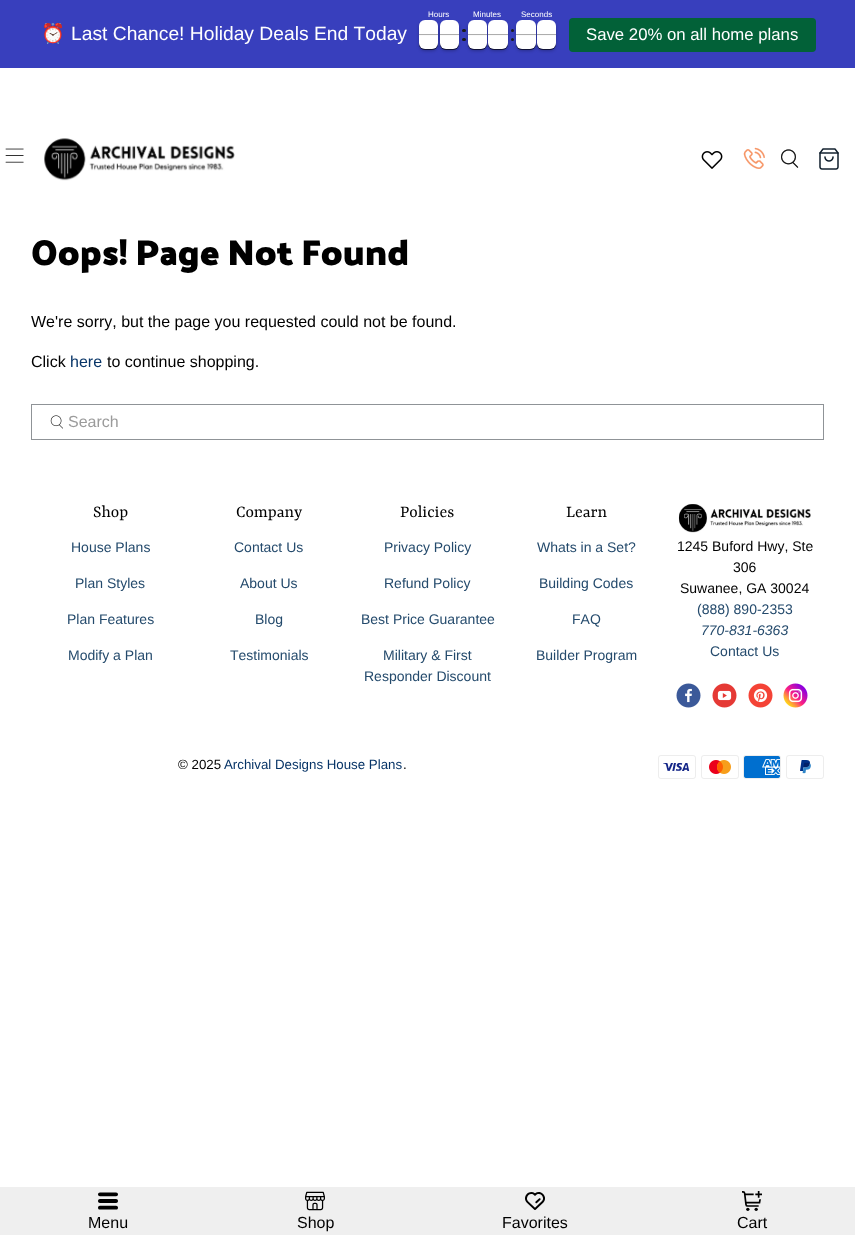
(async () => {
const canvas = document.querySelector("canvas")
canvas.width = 855
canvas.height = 1235
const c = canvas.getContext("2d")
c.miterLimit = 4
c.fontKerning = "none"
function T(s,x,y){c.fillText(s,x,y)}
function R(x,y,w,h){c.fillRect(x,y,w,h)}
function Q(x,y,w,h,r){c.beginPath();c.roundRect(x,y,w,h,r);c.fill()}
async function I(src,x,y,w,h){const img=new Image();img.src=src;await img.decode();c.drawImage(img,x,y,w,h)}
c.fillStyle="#fff"
R(0,0,855,1235)
c.fillStyle="#383fbd"
R(0,0,855,68)
c.fillStyle="#0000003d"
c.filter="blur(1.5px)"
c.beginPath()
c.roundRect(419,22,19,29,6)
c.fill()
c.filter="none"
c.filter="blur(1.5px)"
c.beginPath()
c.roundRect(440,22,19,29,6)
c.fill()
c.filter="none"
c.font="8px Liberation Sans"
c.fillStyle="#fff"
T("Hours",428,17)
c.fillStyle="#00000066"
c.filter="blur(0.5px)"
c.beginPath()
c.roundRect(419,36,19,14,6)
c.fill()
c.filter="none"
c.filter="blur(0.5px)"
c.beginPath()
c.roundRect(440,36,19,14,6)
c.fill()
c.filter="none"
c.fillStyle="#fff"
c.beginPath()
c.roundRect(419,20,19,15,[6,6,0,0])
c.fill()
c.fillStyle="#33333366"
R(419,34,19,1)
c.fillStyle="#00000066"
c.filter="blur(0.5px)"
c.beginPath()
c.roundRect(419,36,19,14,6)
c.fill()
c.filter="none"
c.fillStyle="#fff"
c.beginPath()
c.roundRect(419,35,19,14,[0,0,6,6])
c.fill()
c.fillStyle="#cccccc1a"
R(419,35,19,1)
c.fillStyle="#fff"
c.beginPath()
c.roundRect(440,20,19,15,[6,6,0,0])
c.fill()
c.fillStyle="#33333366"
R(440,34,19,1)
c.fillStyle="#00000066"
c.filter="blur(0.5px)"
c.beginPath()
c.roundRect(440,36,19,14,6)
c.fill()
c.filter="none"
c.fillStyle="#fff"
c.beginPath()
c.roundRect(440,35,19,14,[0,0,6,6])
c.fill()
c.fillStyle="#cccccc1a"
R(440,35,19,1)
c.fillStyle="#1b1b1b"
Q(462,29,4,3,1.5)
Q(462,38,4,3,1.5)
c.fillStyle="#0000003d"
c.filter="blur(1.5px)"
c.beginPath()
c.roundRect(468,22,19,29,6)
c.fill()
c.filter="none"
c.filter="blur(1.5px)"
c.beginPath()
c.roundRect(488,22,20,29,6)
c.fill()
c.filter="none"
c.fillStyle="#fff"
T("Minutes",473,17)
c.fillStyle="#00000066"
c.filter="blur(0.5px)"
c.beginPath()
c.roundRect(468,36,19,14,6)
c.fill()
c.filter="none"
c.filter="blur(0.5px)"
c.beginPath()
c.roundRect(488,36,20,14,6)
c.fill()
c.filter="none"
c.fillStyle="#fff"
c.beginPath()
c.roundRect(468,20,19,15,[6,6,0,0])
c.fill()
c.fillStyle="#33333366"
R(468,34,19,1)
c.fillStyle="#00000066"
c.filter="blur(0.5px)"
c.beginPath()
c.roundRect(468,36,19,14,6)
c.fill()
c.filter="none"
c.fillStyle="#fff"
c.beginPath()
c.roundRect(468,35,19,14,[0,0,6,6])
c.fill()
c.fillStyle="#cccccc1a"
R(468,35,19,1)
c.fillStyle="#fff"
c.beginPath()
c.roundRect(488,20,20,15,[6,6,0,0])
c.fill()
c.fillStyle="#33333366"
R(488,34,20,1)
c.fillStyle="#00000066"
c.filter="blur(0.5px)"
c.beginPath()
c.roundRect(488,36,20,14,6)
c.fill()
c.filter="none"
c.fillStyle="#fff"
c.beginPath()
c.roundRect(488,35,20,14,[0,0,6,6])
c.fill()
c.fillStyle="#cccccc1a"
R(488,35,20,1)
c.fillStyle="#1b1b1b"
c.beginPath()
c.arc(512.5,30.5,1.5,0,7)
c.fill()
c.beginPath()
c.arc(512.5,39.5,1.5,0,7)
c.fill()
c.fillStyle="#0000003d"
c.filter="blur(1.5px)"
c.beginPath()
c.roundRect(516,22,20,29,6)
c.fill()
c.filter="none"
c.filter="blur(1.5px)"
c.beginPath()
c.roundRect(537,22,19,29,6)
c.fill()
c.filter="none"
c.fillStyle="#fff"
T("Seconds",521,17)
c.fillStyle="#00000066"
c.filter="blur(0.5px)"
c.beginPath()
c.roundRect(516,36,20,14,6)
c.fill()
c.filter="none"
c.filter="blur(0.5px)"
c.beginPath()
c.roundRect(537,36,19,14,6)
c.fill()
c.filter="none"
c.fillStyle="#fff"
c.beginPath()
c.roundRect(516,20,20,15,[6,6,0,0])
c.fill()
c.fillStyle="#33333366"
R(516,34,20,1)
c.fillStyle="#00000066"
c.filter="blur(0.5px)"
c.beginPath()
c.roundRect(516,36,20,14,6)
c.fill()
c.filter="none"
c.fillStyle="#fff"
c.beginPath()
c.roundRect(516,35,20,14,[0,0,6,6])
c.fill()
c.fillStyle="#cccccc1a"
R(516,35,20,1)
c.fillStyle="#fff"
c.beginPath()
c.roundRect(537,20,19,15,[6,6,0,0])
c.fill()
c.fillStyle="#33333366"
R(537,34,19,1)
c.fillStyle="#00000066"
c.filter="blur(0.5px)"
c.beginPath()
c.roundRect(537,36,19,14,6)
c.fill()
c.filter="none"
c.fillStyle="#fff"
c.beginPath()
c.roundRect(537,35,19,14,[0,0,6,6])
c.fill()
c.fillStyle="#cccccc1a"
R(537,35,19,1)
c.font="19.25px Noto Color Emoji"
c.fillStyle="#fff"
T("⏰",41,40)
c.font="19.25px Liberation Sans"
T("Last Chance! Holiday Deals End Today",71,40)
c.fillStyle="#026138"
Q(569,18,247,34,4)
c.font="16.75px Liberation Sans"
c.fillStyle="#fff"
T("Save 20% on all home plans",586,40)
await I("1.png",5,148,19,15)
await I("2.png",44,138,191,43)
await I("3.png",701,151,22,18)
await I("4.png",743,147,22,22)
await I("5.png",781,149,18,19)
await I("6.png",819,148,20,22)
c.font="bold 36px Palanquin Dark"
c.fillStyle="#000"
T("Oops! Page Not Found",31,265)
c.font="16px Liberation Sans"
T("We're sorry, but the page you requested could not be found.",31,327)
T("Click",31,367)
c.fillStyle="#073467"
T("here",70,367)
c.fillStyle="#000"
T("to continue shopping.",107,367)
c.strokeStyle="#8f9397"
c.strokeRect(31.5,404.5,792,35)
await I("7.png",50,415,13,14)
c.fillStyle="#9b9b9b"
T("Search",68,427)
c.font="18px Yrsa"
c.fillStyle="#000"
T("Shop",93,517)
c.font="14px Liberation Sans"
c.fillStyle="#244a6c"
T("House Plans",71,552)
T("Plan Styles",75,588)
T("Plan Features",67,624)
T("Modify a Plan",68,660)
c.font="18px Yrsa"
c.fillStyle="#000"
T("Company",236,517)
c.font="14px Liberation Sans"
c.fillStyle="#244a6c"
T("Contact Us",234,552)
T("About Us",240,588)
T("Blog",255,624)
T("Testimonials",230,660)
c.font="18px Yrsa"
c.fillStyle="#000"
T("Policies",400,517)
c.font="14px Liberation Sans"
c.fillStyle="#244a6c"
T("Privacy Policy",384,552)
T("Refund Policy",384,588)
T("Best Price Guarantee",361,624)
T("Military & First",383,660)
T("Responder Discount",364,681)
c.font="18px Yrsa"
c.fillStyle="#000"
T("Learn",566,517)
c.font="14px Liberation Sans"
c.fillStyle="#244a6c"
T("Whats in a Set?",537,552)
T("Building Codes",539,588)
T("FAQ",572,624)
T("Builder Program",536,660)
await I("8.png",678,504,133,29)
c.fillStyle="#000"
T("1245 Buford Hwy, Ste",677,551)
T("306",733,572)
T("Suwanee, GA 30024",680,593)
c.fillStyle="#244a6c"
T("(888) 890-2353",697,614)
c.font="italic 14px Liberation Sans"
T("770-831-6363",701,635)
c.font="14px Liberation Sans"
T("Contact Us",710,656)
await I("9.png",676,683,25,25)
await I("10.png",712,683,25,25)
await I("11.png",748,683,25,25)
await I("12.png",783,683,25,25)
c.font="13.3px Liberation Sans"
c.fillStyle="#000"
T("© 2025",178,769)
c.fillStyle="#073467"
T("Archival Designs House Plans",224,769)
c.fillStyle="#000"
T(".",403,769)
await I("13.png",658,755,38,24)
await I("14.png",701,755,38,24)
await I("15.png",743,755,38,24)
await I("16.png",786,755,38,24)
c.fillStyle="#efefef"
R(0,1187,855,48)
await I("17.png",98,1192,20,18)
c.font="16px Liberation Sans"
c.fillStyle="#000"
T("Menu",88,1228)
await I("18.png",305,1191,20,20)
T("Shop",297,1228)
await I("19.png",525,1192,20,18)
T("Favorites",502,1228)
await I("20.png",742,1191,20,20)
T("Cart",737,1228)
})()
